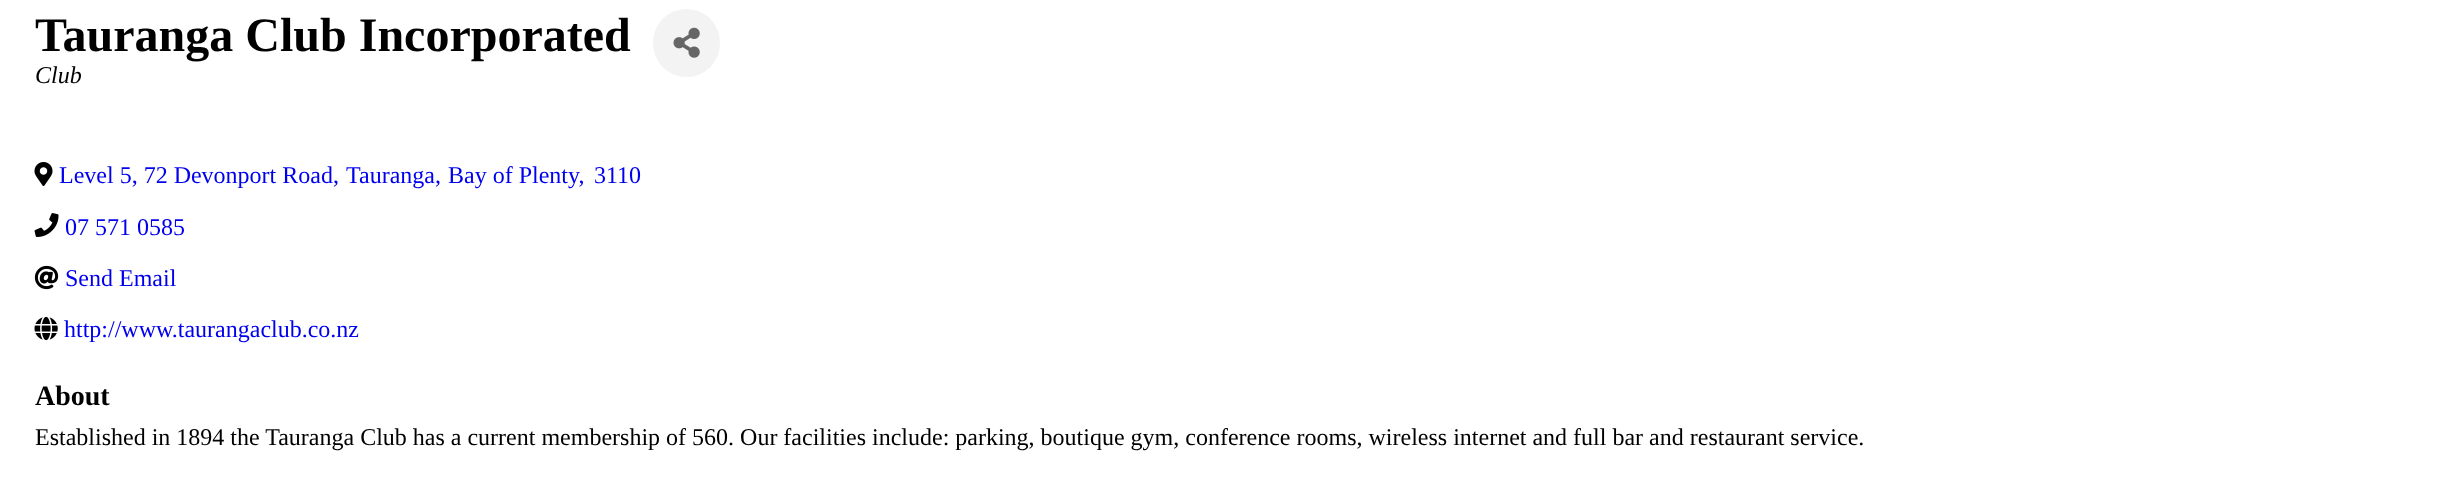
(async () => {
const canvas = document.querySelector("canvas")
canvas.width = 2461
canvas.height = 489
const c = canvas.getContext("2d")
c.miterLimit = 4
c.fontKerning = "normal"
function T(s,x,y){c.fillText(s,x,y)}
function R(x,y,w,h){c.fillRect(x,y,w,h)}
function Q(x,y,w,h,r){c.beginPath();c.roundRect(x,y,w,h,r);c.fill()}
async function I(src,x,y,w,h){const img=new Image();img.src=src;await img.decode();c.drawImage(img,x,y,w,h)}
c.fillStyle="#fff"
R(0,0,2461,489)
c.font="bold 48px Liberation Serif"
c.fillStyle="#000"
T("Tauranga Club Incorporated",35,51)
c.font="italic 24px Liberation Serif"
T("Club",35,83)
c.fillStyle="#f3f3f3"
Q(653,9,67,68,33.5)
await I("1.png",673,27,27,31)
await I("2.png",34,162,19,24)
c.font="24px Liberation Serif"
c.fillStyle="#00e"
T("Level 5, 72 Devonport Road,",59,183)
T("Tauranga,",346,183)
T("Bay of Plenty,",448,183)
T("3110",594,183)
await I("3.png",34,213,25,24)
T("07 571 0585",65,235)
await I("4.png",34,265,25,25)
T("Send Email",65,286)
await I("5.png",34,316,24,25)
T("http://www.taurangaclub.co.nz",64,337)
c.font="bold 28px Liberation Serif"
c.fillStyle="#000"
T("About",35,405)
c.font="24px Liberation Serif"
T("Established in 1894 the Tauranga Club has a current membership of 560. Our facilities include: parking, boutique gym, conference rooms, wireless internet and full bar and restaurant service.",35,445)
})()
